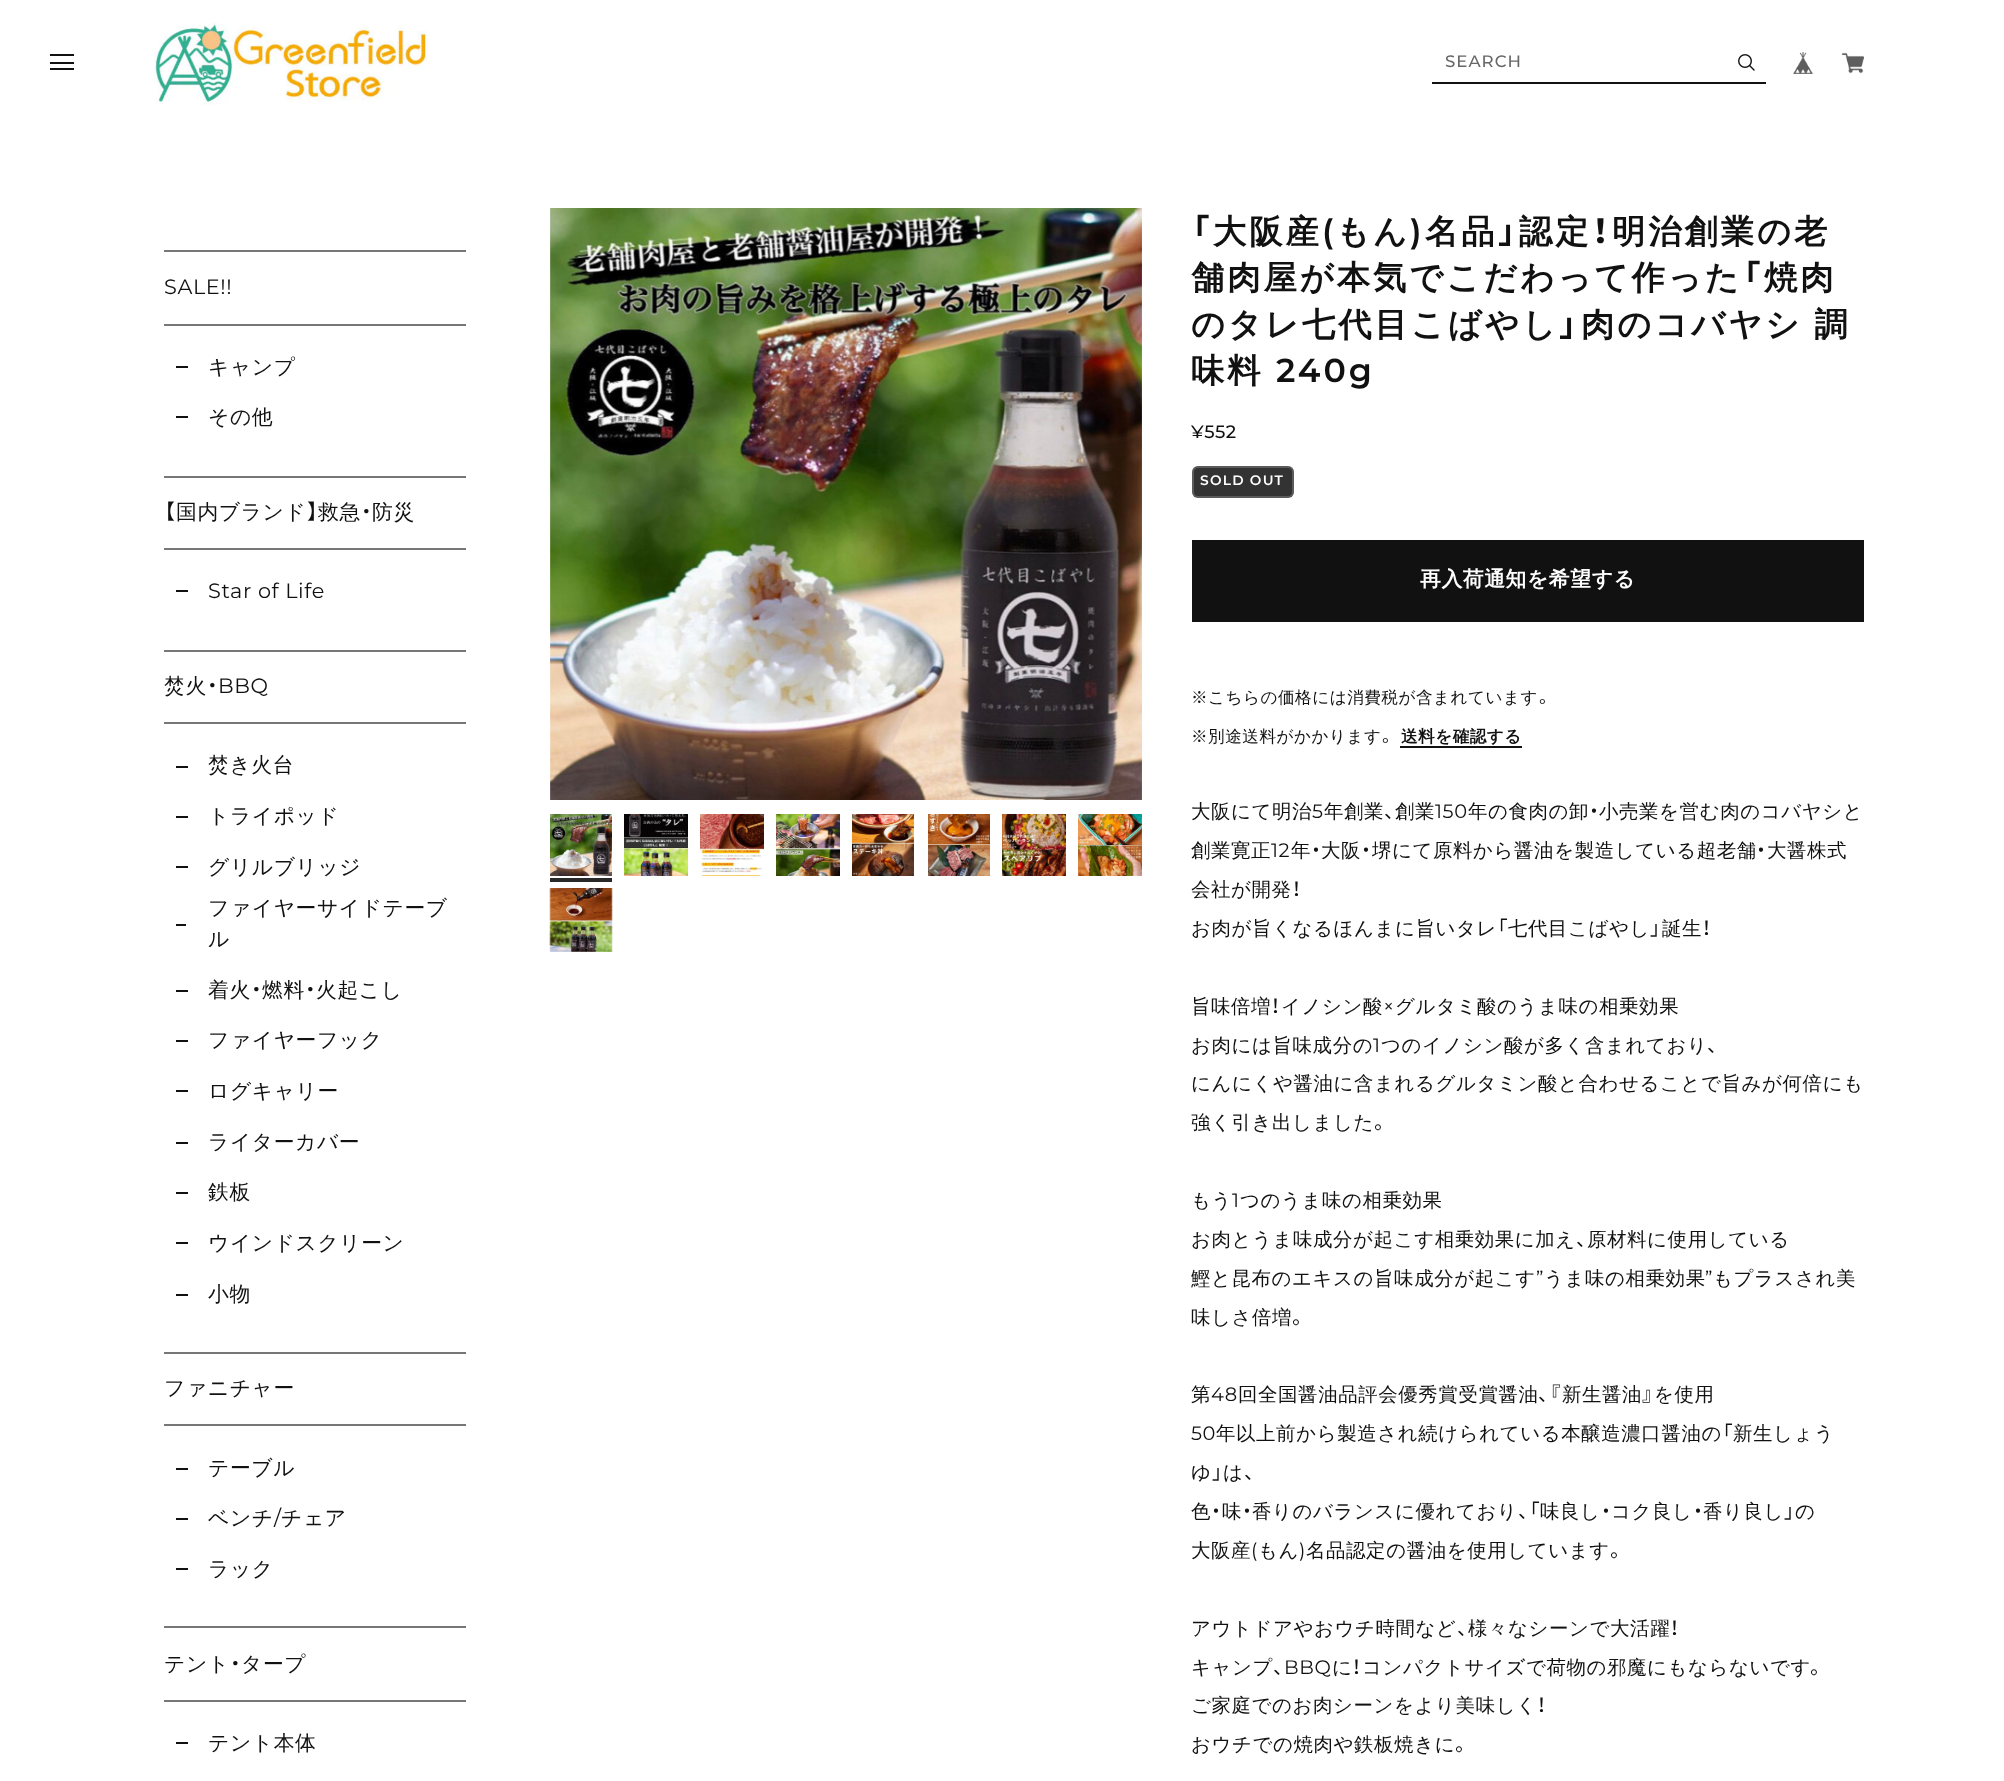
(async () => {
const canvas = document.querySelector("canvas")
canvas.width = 2004
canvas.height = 1781
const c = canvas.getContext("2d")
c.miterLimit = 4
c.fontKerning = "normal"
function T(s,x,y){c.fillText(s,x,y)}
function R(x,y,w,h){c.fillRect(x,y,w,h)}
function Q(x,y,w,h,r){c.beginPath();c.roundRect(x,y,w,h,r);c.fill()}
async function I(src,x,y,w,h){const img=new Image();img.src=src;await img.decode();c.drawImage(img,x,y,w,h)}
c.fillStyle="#fff"
R(0,0,2004,1781)
c.fillStyle="#111"
R(50,54,24,2)
R(50,62,24,2)
R(50,68,24,2)
await I("1.png",154,22,274,83)
c.letterSpacing="1px"
c.font="500 16.6px Montserrat"
c.fillStyle="#676767"
T("SEARCH",1445,67)
await I("2.png",1738,54,17,17)
c.fillStyle="#111"
R(1432,82,334,2)
await I("3.png",1793,52,20,22)
await I("4.png",1842,52,22,22)
c.fillStyle="#777"
R(164,250,302,2)
R(164,324,302,2)
c.letterSpacing="0.6px"
c.font="20.8px Montserrat"
c.fillStyle="#111"
T("SALE!!",164,294)
R(176,366,12,2)
c.font="500 20.8px WenQuanYi Zen Hei"
T("キャンプ",208,374)
R(176,416,12,2)
T("その他",208,424)
c.fillStyle="#777"
R(164,476,302,2)
R(164,548,302,2)
c.font="20.8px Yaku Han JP"
c.fillStyle="#111"
T("【",164,519)
c.font="500 20.8px WenQuanYi Zen Hei"
T("国内ブランド",176,519)
c.font="20.8px Yaku Han JP"
T("】",307,519)
c.font="500 20.8px WenQuanYi Zen Hei"
T("救急",318,519)
c.font="20.8px Yaku Han JP"
T("・",361,519)
c.font="500 20.8px WenQuanYi Zen Hei"
T("防災",372,519)
R(176,590,12,2)
c.font="20.8px Montserrat"
T("Star of Life",208,598)
c.fillStyle="#777"
R(164,650,302,2)
R(164,722,302,2)
c.font="500 20.8px WenQuanYi Zen Hei"
c.fillStyle="#111"
T("焚火",164,693)
c.font="20.8px Yaku Han JP"
T("・",207,693)
c.font="20.8px Montserrat"
T("BBQ",218,693)
R(176,766,12,2)
c.font="500 20.8px WenQuanYi Zen Hei"
T("焚き火台",208,772)
R(176,816,12,2)
T("トライポッド",208,823)
R(176,866,12,2)
T("グリルブリッジ",208,874)
T("ファイヤーサイドテーブ",208,915)
R(176,924,10,2)
T("ル",208,946)
R(176,990,12,2)
T("着火",208,997)
c.font="20.8px Yaku Han JP"
T("・",251,997)
c.font="500 20.8px WenQuanYi Zen Hei"
T("燃料",262,997)
c.font="20.8px Yaku Han JP"
T("・",305,997)
c.font="500 20.8px WenQuanYi Zen Hei"
T("火起こし",316,997)
R(176,1040,12,2)
T("ファイヤーフック",208,1047)
R(176,1090,12,2)
T("ログキャリー",208,1098)
R(176,1142,12,2)
T("ライターカバー",208,1149)
R(176,1192,12,2)
T("鉄板",208,1199)
R(176,1242,12,2)
T("ウインドスクリーン",208,1250)
R(176,1294,12,2)
T("小物",208,1301)
c.fillStyle="#777"
R(164,1352,302,2)
R(164,1424,302,2)
c.fillStyle="#111"
T("ファニチャー",164,1395)
R(176,1468,12,2)
T("テーブル",208,1475)
R(176,1518,12,2)
T("ベンチ",208,1525)
c.font="20.8px Montserrat"
T("/",274,1525)
c.font="500 20.8px WenQuanYi Zen Hei"
T("チェア",281,1525)
R(176,1568,12,2)
T("ラック",208,1576)
c.fillStyle="#777"
R(164,1626,302,2)
R(164,1700,302,2)
c.fillStyle="#111"
T("テント",164,1671)
c.font="20.8px Yaku Han JP"
T("・",230,1671)
c.font="500 20.8px WenQuanYi Zen Hei"
T("タープ",241,1671)
R(176,1742,12,2)
T("テント本体",208,1750)
await I("5.png",550,208,592,592)
await I("6.png",550,814,62,62)
c.fillStyle="#292929"
R(550,878,62,4)
await I("7.png",624,814,64,62)
await I("8.png",700,814,64,62)
await I("9.png",776,814,64,62)
await I("10.png",852,814,62,62)
await I("11.png",928,814,62,62)
await I("12.png",1002,814,64,62)
await I("13.png",1078,814,64,62)
await I("14.png",549,888,64,64)
c.letterSpacing="3px"
c.font="bold 33.25px Yaku Han JP"
c.fillStyle="#111"
T("「",1191,243)
c.font="bold 33.25px WenQuanYi Zen Hei"
T("大阪産",1213,243)
c.font="600 33.25px Montserrat"
T("(",1322,243)
c.font="bold 33.25px WenQuanYi Zen Hei"
T("もん",1336,243)
c.font="600 33.25px Montserrat"
T(")",1410,243)
c.font="bold 33.25px WenQuanYi Zen Hei"
T("名品",1425,243)
c.font="bold 33.25px Yaku Han JP"
T("」",1498,243)
c.font="bold 33.25px WenQuanYi Zen Hei"
T("認定",1519,243)
c.font="bold 33.25px Yaku Han JP"
T("！",1592,243)
c.font="bold 33.25px WenQuanYi Zen Hei"
T("明治創業の老",1612,243)
T("舗肉屋が本気でこだわって作った",1191,289)
c.font="bold 33.25px Yaku Han JP"
T("「",1742,289)
c.font="bold 33.25px WenQuanYi Zen Hei"
T("焼肉",1764,289)
T("のタレ七代目こばやし",1191,336)
c.font="bold 33.25px Yaku Han JP"
T("」",1559,336)
c.wordSpacing="-1px"
c.font="bold 33.25px WenQuanYi Zen Hei"
T("肉のコバヤシ 調",1581,336)
c.wordSpacing="0px"
T("味料",1191,382)
c.font="600 33.25px Montserrat"
T("240g",1276,382)
c.letterSpacing="0.5px"
c.font="500 18px Montserrat"
T("¥552",1191,438)
c.fillStyle="#333"
Q(1192,466,102,32,6)
c.beginPath()
c.roundRect(1193,467,100,30,5)
c.strokeStyle="#ffffff33"
c.lineWidth=2
c.stroke()
c.letterSpacing="1.25px"
c.font="600 13.75px Montserrat"
c.fillStyle="#fff"
T("SOLD OUT",1200,485)
c.fillStyle="#111"
R(1192,540,672,82)
c.letterSpacing="0.6px"
c.font="bold 20.8px WenQuanYi Zen Hei"
c.fillStyle="#fff"
T("再入荷通知を希望する",1420,586)
c.letterSpacing="0.5px"
c.font="500 16.6px WenQuanYi Zen Hei"
c.fillStyle="#111"
T("※こちらの価格には消費税が含まれています",1191,703)
c.font="16.6px Yaku Han JP"
T("。",1539,703)
c.font="500 16.6px WenQuanYi Zen Hei"
T("※別途送料がかかります",1191,742)
c.font="16.6px Yaku Han JP"
T("。",1382,742)
c.font="bold 16.6px WenQuanYi Zen Hei"
T("送料を確認する",1401,742)
R(1400,746,122,2)
c.letterSpacing="0.6px"
c.font="500 19.45px WenQuanYi Zen Hei"
T("大阪にて明治",1191,818)
c.font="19.45px Montserrat"
T("5",1312,818)
c.font="500 19.45px WenQuanYi Zen Hei"
T("年創業",1324,818)
T("創業",1395,818)
c.font="19.45px Montserrat"
T("150",1435,818)
c.font="500 19.45px WenQuanYi Zen Hei"
T("年の食肉の卸",1468,818)
c.font="19.45px Yaku Han JP"
T("・",1589,818)
c.font="500 19.45px WenQuanYi Zen Hei"
T("小売業を営む肉のコバヤシと",1599,818)
c.font="19.45px Yaku Han JP"
T("、",1384,818)
c.font="500 19.45px WenQuanYi Zen Hei"
T("創業寛正",1191,857)
c.font="19.45px Montserrat"
T("12",1271,857)
c.font="500 19.45px WenQuanYi Zen Hei"
T("年",1291,857)
c.font="19.45px Yaku Han JP"
T("・",1311,857)
c.font="500 19.45px WenQuanYi Zen Hei"
T("大阪",1321,857)
c.font="19.45px Yaku Han JP"
T("・",1361,857)
c.font="500 19.45px WenQuanYi Zen Hei"
T("堺にて原料から醤油を製造している超老舗",1372,857)
c.font="19.45px Yaku Han JP"
T("・",1756,857)
c.font="500 19.45px WenQuanYi Zen Hei"
T("大醤株式",1767,857)
T("会社が開発",1191,896)
c.font="19.45px Yaku Han JP"
T("！",1292,896)
c.font="500 19.45px WenQuanYi Zen Hei"
T("お肉が旨くなるほんまに旨いタレ",1191,935)
c.font="19.45px Yaku Han JP"
T("「",1497,935)
c.font="500 19.45px WenQuanYi Zen Hei"
T("七代目こばやし",1508,935)
c.font="19.45px Yaku Han JP"
T("」",1650,935)
c.font="500 19.45px WenQuanYi Zen Hei"
T("誕生",1662,935)
c.font="19.45px Yaku Han JP"
T("！",1702,935)
c.font="500 19.45px WenQuanYi Zen Hei"
T("旨味倍増",1191,1013)
c.font="19.45px Yaku Han JP"
T("！",1271,1013)
c.font="500 19.45px WenQuanYi Zen Hei"
T("イノシン酸",1281,1013)
c.font="19.45px Montserrat"
T("×",1383,1013)
c.font="500 19.45px WenQuanYi Zen Hei"
T("グルタミ酸のうま味の相乗効果",1395,1013)
T("お肉には旨味成分の",1191,1052)
c.font="19.45px Montserrat"
T("1",1373,1052)
c.font="500 19.45px WenQuanYi Zen Hei"
T("つのイノシン酸が多く含まれており",1381,1052)
c.font="19.45px Yaku Han JP"
T("、",1707,1052)
c.font="500 19.45px WenQuanYi Zen Hei"
T("にんにくや醤油に含まれるグルタミン酸と合わせることで旨みが何倍にも",1191,1090)
T("強く引き出しました",1191,1129)
c.font="19.45px Yaku Han JP"
T("。",1374,1129)
c.font="500 19.45px WenQuanYi Zen Hei"
T("もう",1191,1207)
c.font="19.45px Montserrat"
T("1",1232,1207)
c.font="500 19.45px WenQuanYi Zen Hei"
T("つのうま味の相乗効果",1240,1207)
T("お肉とうま味成分が起こす相乗効果に加え",1191,1246)
c.font="19.45px Yaku Han JP"
T("、",1576,1246)
c.font="500 19.45px WenQuanYi Zen Hei"
T("原材料に使用している",1587,1246)
T("鰹と昆布のエキスの旨味成分が起こす",1191,1285)
c.font="19.45px Montserrat"
T("”",1536,1285)
c.font="500 19.45px WenQuanYi Zen Hei"
T("うま味の相乗効果",1544,1285)
c.font="19.45px Montserrat"
T("”",1705,1285)
c.font="500 19.45px WenQuanYi Zen Hei"
T("もプラスされ美",1713,1285)
T("味しさ倍増",1191,1324)
c.font="19.45px Yaku Han JP"
T("。",1292,1324)
c.font="500 19.45px WenQuanYi Zen Hei"
T("第",1191,1401)
c.font="19.45px Montserrat"
T("48",1211,1401)
c.font="500 19.45px WenQuanYi Zen Hei"
T("回全国醤油品評会優秀賞受賞醤油",1238,1401)
c.font="19.45px Yaku Han JP"
T("、『",1538,1401)
c.font="500 19.45px WenQuanYi Zen Hei"
T("新生醤油",1562,1401)
c.font="19.45px Yaku Han JP"
T("』",1642,1401)
c.font="500 19.45px WenQuanYi Zen Hei"
T("を使用",1654,1401)
c.font="19.45px Montserrat"
T("50",1191,1440)
c.font="500 19.45px WenQuanYi Zen Hei"
T("年以上前から製造され続けられている本醸造濃口醤油の",1216,1440)
c.font="19.45px Yaku Han JP"
T("「",1722,1440)
c.font="500 19.45px WenQuanYi Zen Hei"
T("新生しょう",1733,1440)
T("ゆ",1191,1479)
c.font="19.45px Yaku Han JP"
T("」",1212,1479)
c.font="500 19.45px WenQuanYi Zen Hei"
T("は",1223,1479)
c.font="19.45px Yaku Han JP"
T("、",1244,1479)
c.font="500 19.45px WenQuanYi Zen Hei"
T("色",1191,1518)
c.font="19.45px Yaku Han JP"
T("・",1211,1518)
c.font="500 19.45px WenQuanYi Zen Hei"
T("味",1222,1518)
c.font="19.45px Yaku Han JP"
T("・",1242,1518)
c.font="500 19.45px WenQuanYi Zen Hei"
T("香りのバランスに優れており",1252,1518)
c.font="19.45px Yaku Han JP"
T("、「",1518,1518)
c.font="500 19.45px WenQuanYi Zen Hei"
T("味良し",1540,1518)
c.font="19.45px Yaku Han JP"
T("・",1601,1518)
c.font="500 19.45px WenQuanYi Zen Hei"
T("コク良し",1611,1518)
c.font="19.45px Yaku Han JP"
T("・",1693,1518)
c.font="500 19.45px WenQuanYi Zen Hei"
T("香り良し",1703,1518)
c.font="19.45px Yaku Han JP"
T("」",1784,1518)
c.font="500 19.45px WenQuanYi Zen Hei"
T("の",1795,1518)
T("大阪産",1191,1557)
c.font="19.45px Montserrat"
T("(",1251,1557)
c.font="500 19.45px WenQuanYi Zen Hei"
T("もん",1258,1557)
c.font="19.45px Montserrat"
T(")",1299,1557)
c.font="500 19.45px WenQuanYi Zen Hei"
T("名品認定の醤油を使用しています",1306,1557)
c.font="19.45px Yaku Han JP"
T("。",1610,1557)
c.font="500 19.45px WenQuanYi Zen Hei"
T("アウトドアやおウチ時間など",1191,1635)
c.font="19.45px Yaku Han JP"
T("、",1457,1635)
c.font="500 19.45px WenQuanYi Zen Hei"
T("様々なシーンで大活躍",1468,1635)
c.font="19.45px Yaku Han JP"
T("！",1670,1635)
c.font="500 19.45px WenQuanYi Zen Hei"
T("キャンプ",1191,1674)
c.font="19.45px Yaku Han JP"
T("、",1273,1674)
c.font="19.45px Montserrat"
T("BBQ",1284,1674)
c.font="500 19.45px WenQuanYi Zen Hei"
T("に",1332,1674)
c.font="19.45px Yaku Han JP"
T("！",1352,1674)
c.font="500 19.45px WenQuanYi Zen Hei"
T("コンパクトサイズで荷物の邪魔にもならないです",1362,1674)
c.font="19.45px Yaku Han JP"
T("。",1810,1674)
c.font="500 19.45px WenQuanYi Zen Hei"
T("ご家庭でのお肉シーンをより美味しく",1191,1712)
c.font="19.45px Yaku Han JP"
T("！",1537,1712)
c.font="500 19.45px WenQuanYi Zen Hei"
T("おウチでの焼肉や鉄板焼きに",1191,1751)
c.font="19.45px Yaku Han JP"
T("。",1455,1751)
})()
